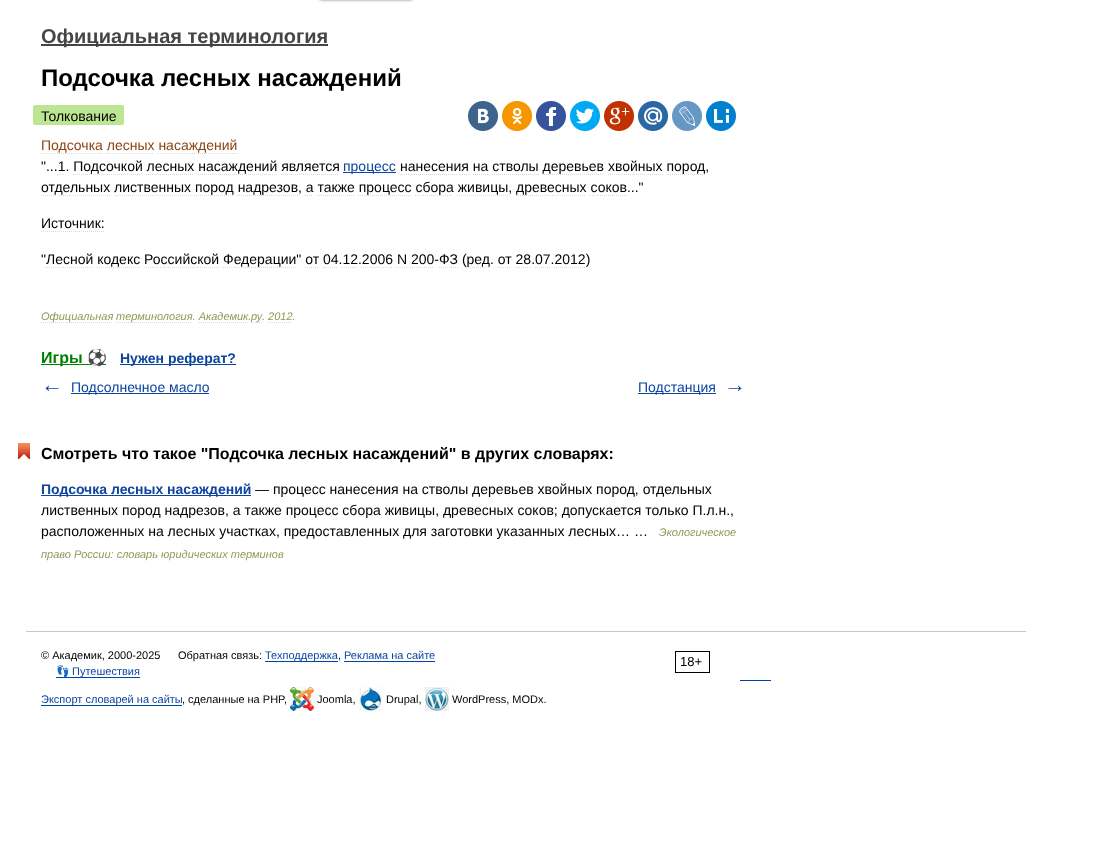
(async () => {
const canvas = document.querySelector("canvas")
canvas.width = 1101
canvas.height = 866
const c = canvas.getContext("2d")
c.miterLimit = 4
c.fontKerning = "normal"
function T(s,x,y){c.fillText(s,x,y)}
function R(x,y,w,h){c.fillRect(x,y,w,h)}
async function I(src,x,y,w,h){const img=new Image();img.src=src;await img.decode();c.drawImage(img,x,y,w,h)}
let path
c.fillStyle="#fff"
R(0,0,1101,866)
c.fillStyle="#00000080"
c.filter="blur(1.5px)"
c.beginPath()
c.roundRect(319,-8,94,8,3)
c.fill()
c.filter="none"
c.fillStyle="#454545"
R(41,44,287,2)
c.font="bold 20px Liberation Sans"
T("Официальная терминология",41,43)
c.font="bold 24px Liberation Sans"
c.fillStyle="#000"
T("Подсочка лесных насаждений",41,86)
c.fillStyle="#bde693"
c.beginPath()
c.roundRect(33,105,8,20,[2,0,0,2])
c.fill()
c.beginPath()
c.roundRect(41,105,83,20,[0,2,2,0])
c.fill()
c.font="14px Liberation Sans"
c.fillStyle="#000"
T("Толкование",41,121)
await I("1.png",468,101,30,30)
await I("2.png",502,101,30,30)
await I("3.png",536,101,30,30)
await I("4.png",570,101,30,30)
await I("5.png",604,101,30,30)
await I("6.png",638,101,30,30)
await I("7.png",672,101,30,30)
await I("8.png",706,101,30,30)
c.fillStyle="#8b4513"
T("Подсочка лесных насаждений",41,150)
path = new Path2D("M41 153.5h61")
c.strokeStyle="#d9d9d9"
c.setLineDash([1,1])
c.stroke(path)
path = new Path2D("M106 153.5h48")
c.stroke(path)
path = new Path2D("M158 153.5h79")
c.stroke(path)
c.fillStyle="#000"
T("\"...1. Подсочкой лесных насаждений является",41,171)
c.fillStyle="#0d44a0"
R(343,172,53,1)
T("процесс",343,171)
c.fillStyle="#000"
T("нанесения на стволы деревьев хвойных пород,",400,171)
path = new Path2D("M400 174.5h69")
c.stroke(path)
path = new Path2D("M57 174.5h8")
c.stroke(path)
path = new Path2D("M73 174.5h69")
c.stroke(path)
path = new Path2D("M146 174.5h48")
c.stroke(path)
path = new Path2D("M198 174.5h79")
c.stroke(path)
path = new Path2D("M281 174.5h58")
c.stroke(path)
path = new Path2D("M473 174.5h15")
c.stroke(path)
path = new Path2D("M492 174.5h47")
c.stroke(path)
path = new Path2D("M542 174.5h62")
c.stroke(path)
path = new Path2D("M608 174.5h55")
c.stroke(path)
path = new Path2D("M666 174.5h39")
c.stroke(path)
T("отдельных лиственных пород надрезов, а также процесс сбора живицы, древесных соков...\"",41,192)
path = new Path2D("M41 195.5h69")
c.stroke(path)
path = new Path2D("M114 195.5h77")
c.stroke(path)
path = new Path2D("M194 195.5h39")
c.stroke(path)
path = new Path2D("M237 195.5h61")
c.stroke(path)
path = new Path2D("M305 195.5h8m4 0h37")
c.stroke(path)
path = new Path2D("M358 195.5h53")
c.stroke(path)
path = new Path2D("M415 195.5h38")
c.stroke(path)
path = new Path2D("M457 195.5h51")
c.stroke(path)
path = new Path2D("M516 195.5h70")
c.stroke(path)
path = new Path2D("M590 195.5h37")
c.stroke(path)
T("Источник:",41,228)
path = new Path2D("M41 231.5h63")
c.stroke(path)
T("\"Лесной кодекс Российской Федерации\" от 04.12.2006 N 200-ФЗ (ред. от 28.07.2012)",41,264)
path = new Path2D("M45 267.5h48")
c.stroke(path)
path = new Path2D("M97 267.5h43")
c.stroke(path)
path = new Path2D("M144 267.5h75")
c.stroke(path)
path = new Path2D("M223 267.5h73")
c.stroke(path)
path = new Path2D("M305 267.5h14m3 0h16m4 0h16")
c.stroke(path)
path = new Path2D("M361 267.5h32m3 0h11")
c.stroke(path)
path = new Path2D("M410 267.5h24m5 0h19")
c.stroke(path)
path = new Path2D("M466 267.5h24m7 0h14")
c.stroke(path)
path = new Path2D("M515 267.5h16m4 0h15")
c.stroke(path)
path = new Path2D("M554 267.5h31")
c.stroke(path)
path = new Path2D("M41 322.5h72")
c.stroke(path)
c.font="italic 11px Liberation Sans"
c.fillStyle="#939756"
T("Официальная",41,320)
path = new Path2D("M116 322.5h76")
c.stroke(path)
T("терминология. Академик.",116,320)
path = new Path2D("M199 322.5h49m3 0h11")
c.stroke(path)
T("ру",251,320)
T(". 2012.",262,320)
path = new Path2D("M268 322.5h24")
c.stroke(path)
c.fillStyle="#008000"
R(41,364,65,1)
c.font="bold 16px Liberation Sans"
T("Игры",41,363)
c.font="bold 16px Noto Color Emoji"
T("⚽",87,363)
c.fillStyle="#0d44a0"
R(120,364,116,1)
c.font="bold 14px Liberation Sans"
T("Нужен реферат?",120,363)
c.font="bold 22px Liberation Sans"
T("←",41,392)
R(71,393,138,1)
c.font="14px Liberation Sans"
T("Подсолнечное масло",71,392)
R(638,393,78,1)
T("Подстанция",638,392)
c.font="bold 22px Liberation Sans"
T("→",724,392)
await I("9.png",18,443,12,16)
c.font="bold 16px Liberation Sans"
c.fillStyle="#000"
T("Смотреть что такое \"Подсочка лесных насаждений\" в других словарях:",41,459)
c.fillStyle="#0d44a0"
R(41,495,210,1)
c.font="bold 14px Liberation Sans"
T("Подсочка лесных насаждений",41,494)
c.font="14px Liberation Sans"
c.fillStyle="#000"
T("— процесс нанесения на стволы деревьев хвойных пород, отдельных",255,494)
T("лиственных пород надрезов, а также процесс сбора живицы, древесных соков; допускается только П.л.н.,",41,515)
T("расположенных на лесных участках, предоставленных для заготовки указанных лесных… …",41,536)
c.font="italic 11px Liberation Sans"
c.fillStyle="#939756"
T("Экологическое",659,536)
T("право России: словарь юридических терминов",41,558)
c.fillStyle="#c7c7c7"
R(26,631,1000,1)
c.font="11px Liberation Sans"
c.fillStyle="#000"
T("© Академик, 2000-2025",41,659)
T("Обратная связь:",178,659)
c.fillStyle="#04a"
R(265,661,73,1)
c.fillStyle="#0d44a0"
T("Техподдержка",265,659)
c.fillStyle="#000"
T(",",338,659)
c.fillStyle="#04a"
R(344,661,91,1)
c.fillStyle="#0d44a0"
T("Реклама на сайте",344,659)
c.strokeStyle="#000"
c.setLineDash([])
c.strokeRect(675.5,651.5,34,21)
c.font="13px Liberation Sans"
c.fillStyle="#000"
T("18+",680,666)
c.fillStyle="#04a"
R(56,677,84,1)
c.font="11px Noto Color Emoji"
c.fillStyle="#0d44a0"
T("👣",56,675)
c.font="11px Liberation Sans"
T("Путешествия",72,675)
c.fillStyle="#04a"
R(740,680,31,1)
R(41,705,141,1)
c.fillStyle="#0d44a0"
T("Экспорт словарей на сайты",41,703)
c.fillStyle="#000"
T(", сделанные на PHP,",182,703)
await I("10.png",290,687,24,24)
T("Joomla,",317,703)
await I("11.png",359,687,24,24)
T("Drupal,",386,703)
await I("12.png",425,687,24,24)
T("WordPress, MODx.",452,703)
})()
